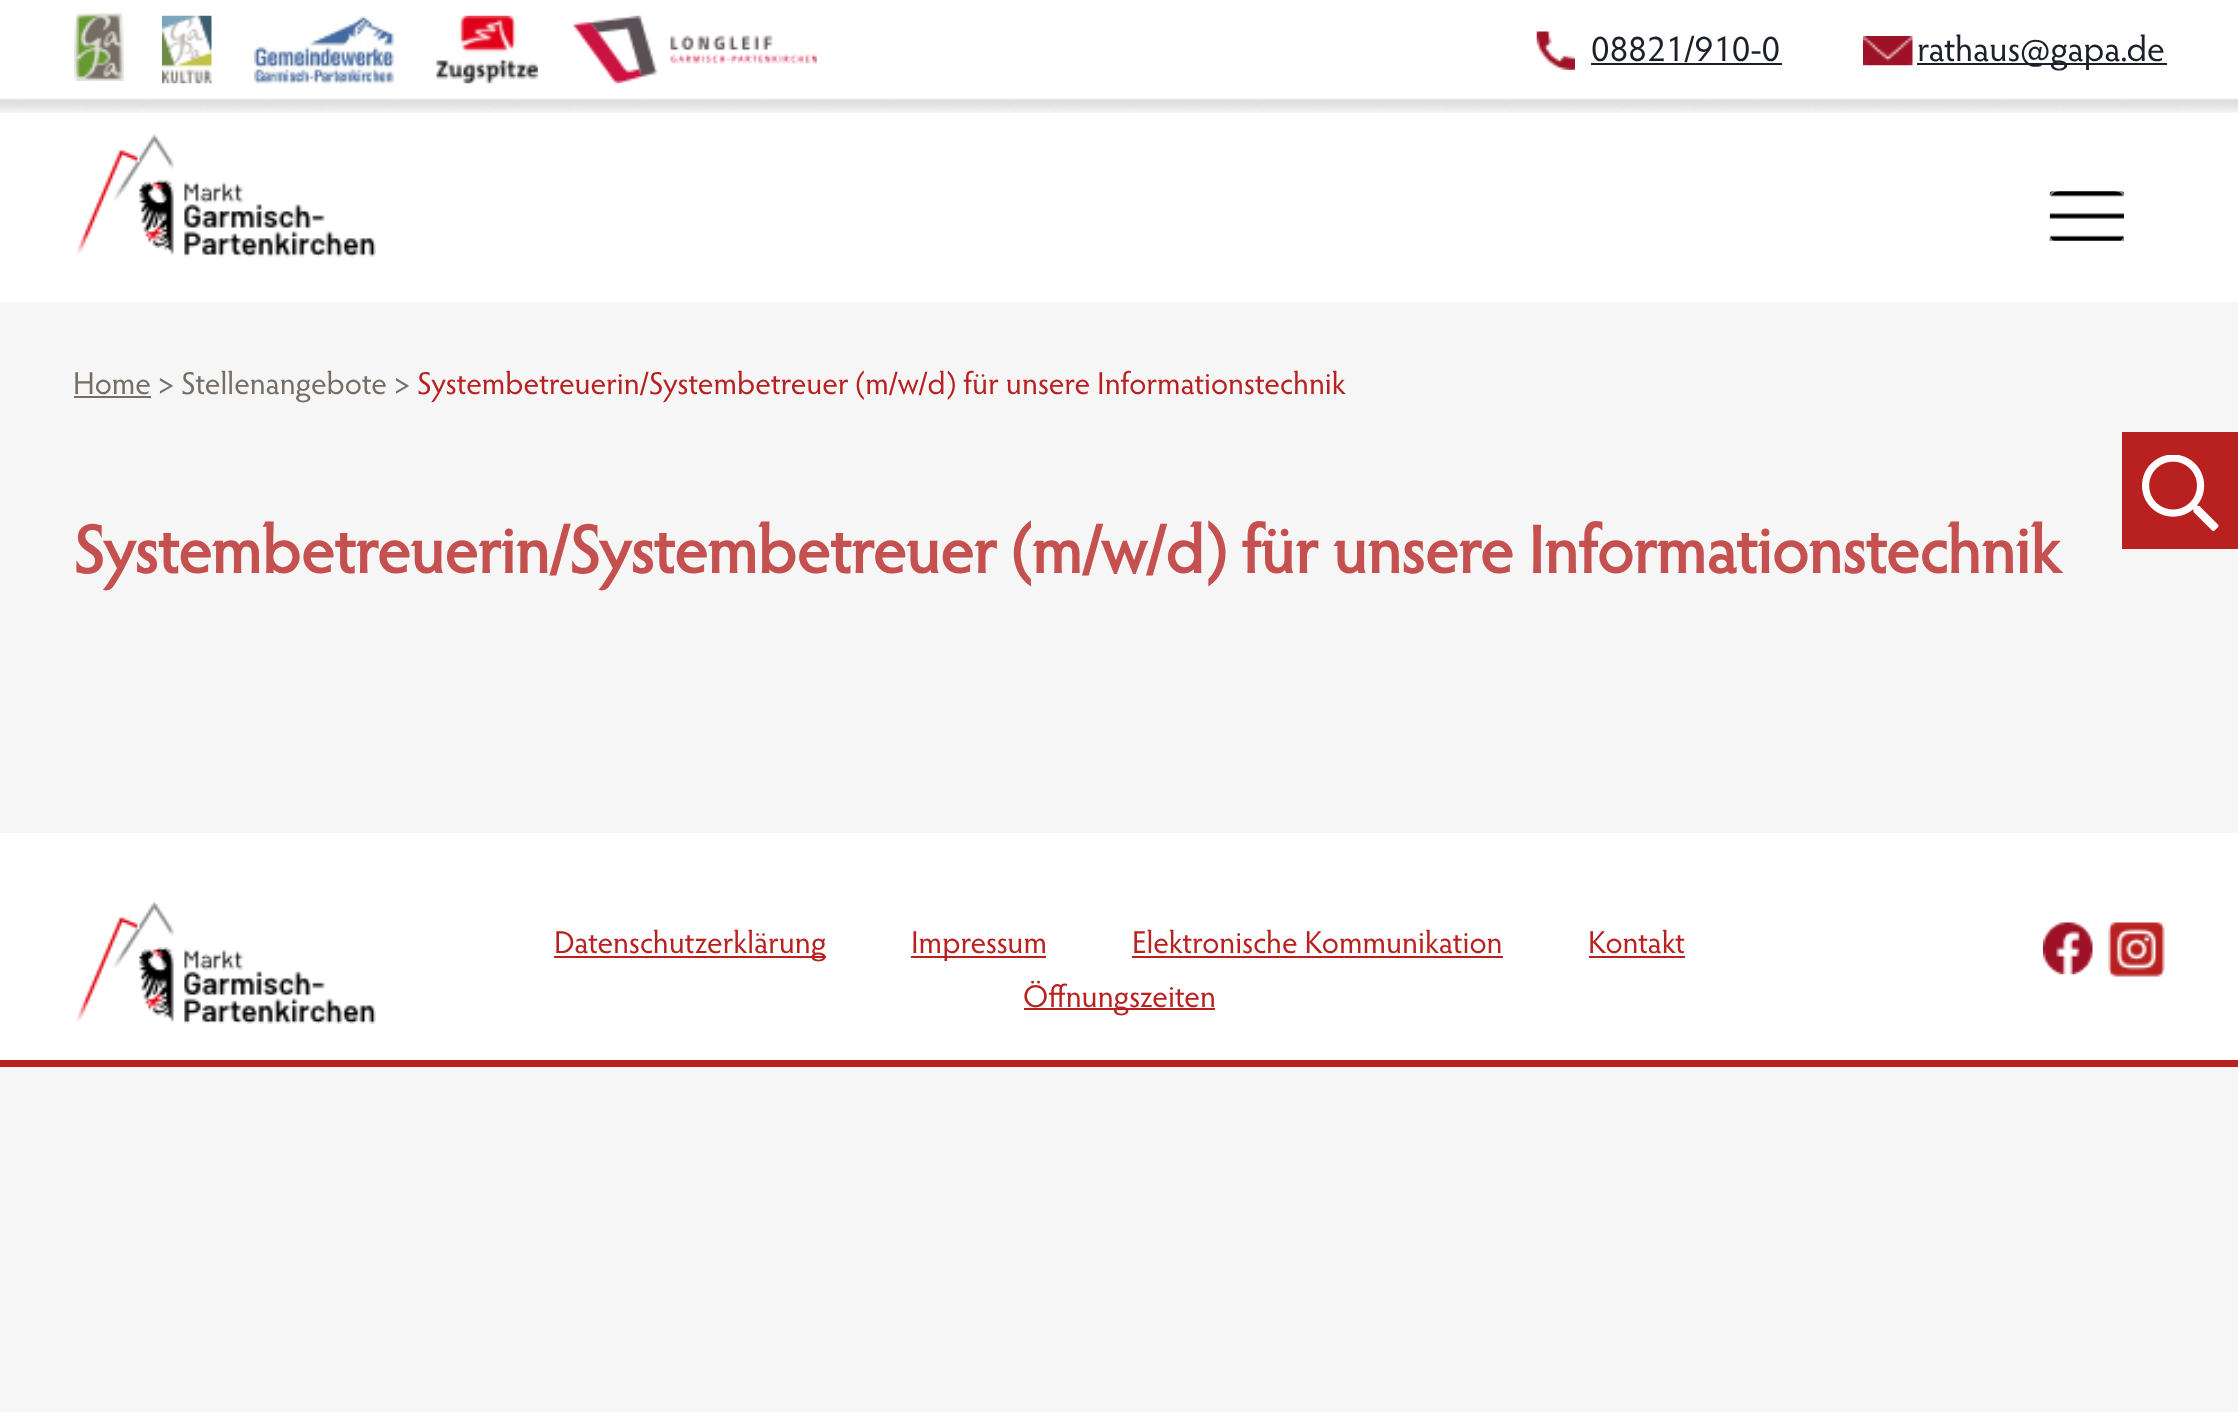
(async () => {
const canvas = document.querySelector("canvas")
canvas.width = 2238
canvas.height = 1412
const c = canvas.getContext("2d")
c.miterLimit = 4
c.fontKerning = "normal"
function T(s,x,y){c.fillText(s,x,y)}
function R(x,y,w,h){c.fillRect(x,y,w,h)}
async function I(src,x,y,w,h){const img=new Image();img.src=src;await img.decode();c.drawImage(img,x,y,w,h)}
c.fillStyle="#f6f6f6"
R(0,0,2238,1412)
await I("1.png",0,0,2238,112)
await I("2.png",74,13,50,68)
await I("3.png",162,15,50,69)
await I("4.png",254,15,140,69)
await I("5.png",436,15,102,69)
await I("6.png",573,15,244,69)
await I("7.png",1536,31,39,39)
c.font="36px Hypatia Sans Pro"
c.fillStyle="#1c2129"
T("08821/910-0",1591,61)
R(1591,63,191,2)
await I("8.png",1863,36,50,30)
R(1917,63,250,2)
T("rathaus@gapa.de",1917,61)
c.fillStyle="#fff"
R(0,113,2238,189)
await I("9.png",76,134,300,123)
await I("10.png",2049,191,75,50)
c.beginPath()
c.roundRect(2049,190,76,54,10)
c.strokeStyle="#ffffff80"
c.lineWidth=2
c.stroke()
c.fillStyle="#766e66"
R(74,396,77,2)
c.font="31.6px Hypatia Sans Pro"
T("Home > Stellenangebote >",73,394)
c.fillStyle="#b82120"
T("Systembetreuerin/Systembetreuer (m/w/d) für unsere Informationstechnik",417,394)
R(2122,432,116,117)
await I("11.png",2142,455,77,76)
c.font="bold 67.6px Hypatia Sans Pro"
c.fillStyle="#c45050"
T("Systembetreuerin/Systembetreuer (m/w/d) für unsere Informationstechnik",73,573)
c.fillStyle="#fff"
R(0,833,2238,227)
c.fillStyle="#b82120"
R(0,1060,2238,7)
await I("12.png",76,901,300,123)
R(554,956,272,2)
c.font="31.6px Hypatia Sans Pro"
T("Datenschutzerklärung",554,953)
R(911,956,135,2)
T("Impressum",911,953)
T("Elektronische Kommunikation",1132,953)
R(1132,956,371,2)
T("Kontakt",1588,953)
R(1589,956,96,2)
R(1024,1008,191,2)
T("Öffnungszeiten",1023,1007)
await I("13.png",2043,922,50,53)
await I("14.png",2108,922,57,55)
})()
